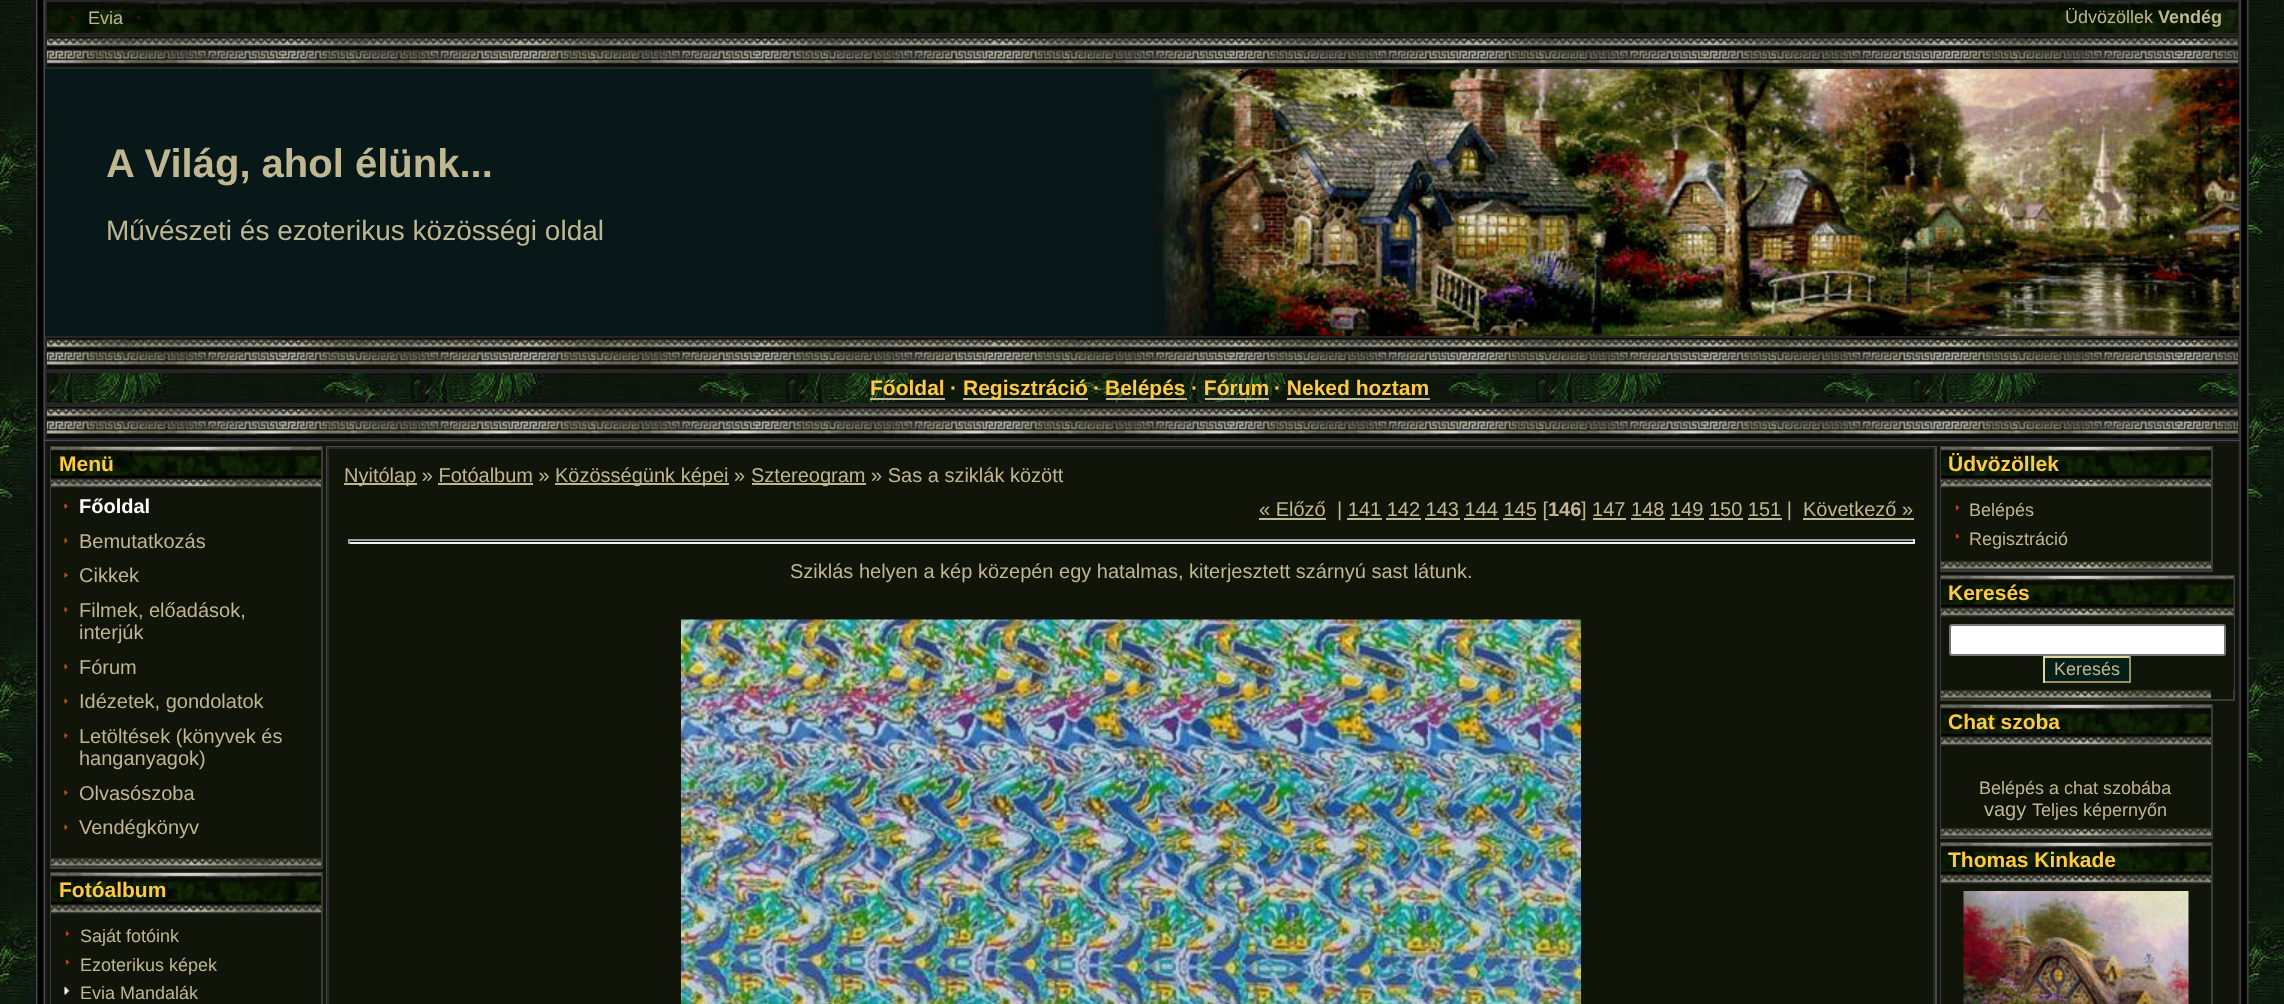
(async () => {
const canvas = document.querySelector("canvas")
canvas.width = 2284
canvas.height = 1004
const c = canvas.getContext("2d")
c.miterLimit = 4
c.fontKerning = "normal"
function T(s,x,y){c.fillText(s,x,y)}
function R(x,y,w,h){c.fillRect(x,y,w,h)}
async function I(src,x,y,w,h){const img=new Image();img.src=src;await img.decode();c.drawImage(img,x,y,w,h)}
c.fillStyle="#fff"
R(0,0,2284,1004)
await I("1.png",0,0,2284,1004)
await I("2.png",36,0,9,1004)
await I("3.png",47,2,2191,31)
c.strokeStyle="#262626"
c.lineWidth=2
c.strokeRect(46,1,2193,33)
c.font="18px Liberation Sans"
c.fillStyle="#bfb792"
T("Evia",88,24)
c.fillStyle="#600601"
R(71,16,3,3)
c.fillStyle="#830000b5"
R(137,16,3,3)
c.fillStyle="#bfb792"
T("Üdvözöllek",2065,23)
c.font="bold 18px Liberation Sans"
T("Vendég",2158,23)
await I("4.png",45,34,2195,33)
c.strokeRect(46,36,2193,32)
c.fillStyle="#081717"
R(45,69,2195,267)
await I("5.png",1151,69,1089,267)
c.font="bold 40px Liberation Sans"
c.fillStyle="#bfb792"
T("A Világ, ahol élünk...",106,177)
c.font="28px Liberation Sans"
T("Művészeti és ezoterikus közösségi oldal",106,240)
await I("6.png",47,338,2191,31)
c.strokeRect(46,337,2193,33)
c.strokeRect(46,372,2193,32)
c.font="bold 21px Liberation Sans"
c.fillStyle="#ffca42"
T("Főoldal",870,395)
c.fillStyle="#bfb792"
R(870,398,75,2)
c.fillStyle="#ffca42"
T("·",950,395)
c.fillStyle="#bfb792"
R(963,398,125,2)
c.fillStyle="#ffca42"
T("Regisztráció",963,395)
T("·",1093,395)
c.fillStyle="#bfb792"
R(1106,398,81,2)
c.fillStyle="#ffca42"
T("Belépés",1105,395)
T("· Fórum",1191,395)
T("· Neked hoztam",1274,395)
c.fillStyle="#bfb792"
R(1205,398,64,2)
R(1287,398,143,2)
await I("6.png",47,407,2191,31)
c.strokeRect(46,406,2193,33)
c.fillStyle="#494949"
R(45,440,2195,1)
c.fillStyle="#111409"
c.beginPath()
c.rect(46,442,2193,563)
c.fill()
c.strokeStyle="#1a1a1a"
c.stroke()
c.strokeStyle="#3c3c3c"
c.strokeRect(51,447,271,421)
await I("7.png",51,447,270,41)
c.fillStyle="#ffca42"
T("Menü",59,471)
c.fillStyle="#111409"
R(51,488,1,370)
await I("8.png",64,503,4,6)
c.font="bold 20px Liberation Sans"
c.fillStyle="#fff"
T("Főoldal",79,513)
await I("9.png",64,538,4,6)
c.font="20px Liberation Sans"
c.fillStyle="#bfb792"
T("Bemutatkozás",79,548)
await I("8.png",64,572,4,6)
T("Cikkek",79,582)
await I("9.png",64,607,4,6)
T("Filmek, előadások,",79,617)
T("interjúk",79,639)
await I("9.png",64,664,4,6)
T("Fórum",79,674)
await I("8.png",64,698,4,6)
T("Idézetek, gondolatok",79,708)
await I("9.png",64,733,4,6)
T("Letöltések (könyvek és",79,743)
T("hanganyagok)",79,765)
await I("9.png",64,790,4,6)
T("Olvasószoba",79,800)
await I("8.png",64,824,4,6)
T("Vendégkönyv",79,834)
await I("10.png",51,858,270,9)
c.strokeRect(51,873,271,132)
await I("7.png",51,873,270,41)
c.font="bold 21px Liberation Sans"
c.fillStyle="#ffca42"
T("Fotóalbum",59,897)
c.fillStyle="#111409"
R(51,914,1,90)
await I("11.png",65,931,5,6)
c.font="18px Liberation Sans"
c.fillStyle="#bfb792"
T("Saját fotóink",80,942)
await I("12.png",65,959,5,6)
T("Ezoterikus képek",80,971)
await I("13.png",64,986,6,9)
T("Evia Mandalák",80,999)
c.strokeStyle="#494949"
c.strokeRect(327,447,1609,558)
c.strokeStyle="#262626"
c.strokeRect(328,448,1606,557)
R(344,483,73,2)
c.font="20px Liberation Sans"
T("Nyitólap » Fotóalbum »",344,482)
R(555,483,174,2)
T("Közösségünk képei »",555,482)
R(752,483,114,2)
T("Sztereogram » Sas a sziklák között",751,482)
R(438,483,95,2)
T("« Előző",1259,516)
R(1259,518,67,2)
T("| 141 142 143 144 145 [",1337,516)
c.font="bold 20px Liberation Sans"
T("146",1548,516)
c.font="20px Liberation Sans"
T("] 147 148 149 150 151 |",1581,516)
T("Következő »",1803,516)
R(1803,518,111,2)
R(1347,518,35,2)
R(1386,518,35,2)
R(1425,518,35,2)
R(1464,518,35,2)
R(1503,518,33,2)
R(1593,518,33,2)
R(1631,518,34,2)
R(1670,518,34,2)
R(1709,518,34,2)
R(1748,518,34,2)
c.fillStyle="#9f9f9f"
R(348,539,1566,2)
c.fillStyle="#eee"
R(1913,539,2,5)
R(348,542,1566,2)
c.fillStyle="#9f9f9f"
R(348,539,2,5)
c.fillStyle="#bfb792"
T("Sziklás helyen a kép közepén egy hatalmas, kiterjesztett szárnyú sast látunk.",790,578)
await I("14.png",681,619,900,385)
c.strokeStyle="#3c3c3c"
c.strokeRect(1941,447,271,124)
await I("15.png",1941,447,270,41)
c.font="bold 21px Liberation Sans"
c.fillStyle="#ffca42"
T("Üdvözöllek",1948,471)
c.fillStyle="#111409"
R(1941,488,1,73)
await I("16.png",1955,505,5,6)
c.font="18px Liberation Sans"
c.fillStyle="#bfb792"
T("Belépés",1969,516)
await I("17.png",1955,533,5,6)
T("Regisztráció",1969,545)
await I("18.png",1941,561,270,9)
c.strokeRect(1941,576,293,124)
await I("19.png",1941,576,293,41)
c.font="bold 21px Liberation Sans"
c.fillStyle="#ffca42"
T("Keresés",1948,600)
c.fillStyle="#111409"
R(1941,617,293,73)
c.fillStyle="#fff"
c.beginPath()
c.roundRect(1950,625,275,30,2)
c.fill()
c.strokeStyle="#767676"
c.stroke()
c.fillStyle="#061e18"
R(2045,658,84,23)
c.fillStyle="#e1d99b"
R(2043,656,87,2)
c.fillStyle="#969167"
R(2129,656,2,27)
R(2043,681,87,2)
c.fillStyle="#e1d99b"
R(2043,656,2,27)
c.font="18px Liberation Sans"
c.fillStyle="#bfb792"
T("Keresés",2054,675)
await I("18.png",1941,690,270,9)
c.strokeStyle="#3c3c3c"
c.strokeRect(1941,705,271,133)
await I("15.png",1941,705,270,41)
c.font="bold 21px Liberation Sans"
c.fillStyle="#ffca42"
T("Chat szoba",1948,729)
c.fillStyle="#111409"
R(1941,746,1,82)
c.font="18px Liberation Sans"
c.fillStyle="#bfb792"
T("Belépés a chat szobába",1979,794)
c.font="20px Liberation Sans"
T("vagy",1984,816)
c.font="18px Liberation Sans"
T("Teljes képernyőn",2032,816)
await I("18.png",1941,828,270,9)
c.strokeRect(1941,843,271,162)
await I("15.png",1941,843,270,41)
c.font="bold 21px Liberation Sans"
c.fillStyle="#ffca42"
T("Thomas Kinkade",1948,867)
c.fillStyle="#111409"
R(1941,884,1,120)
await I("20.png",1963,891,226,113)
await I("21.png",2239,0,10,1004)
})()
